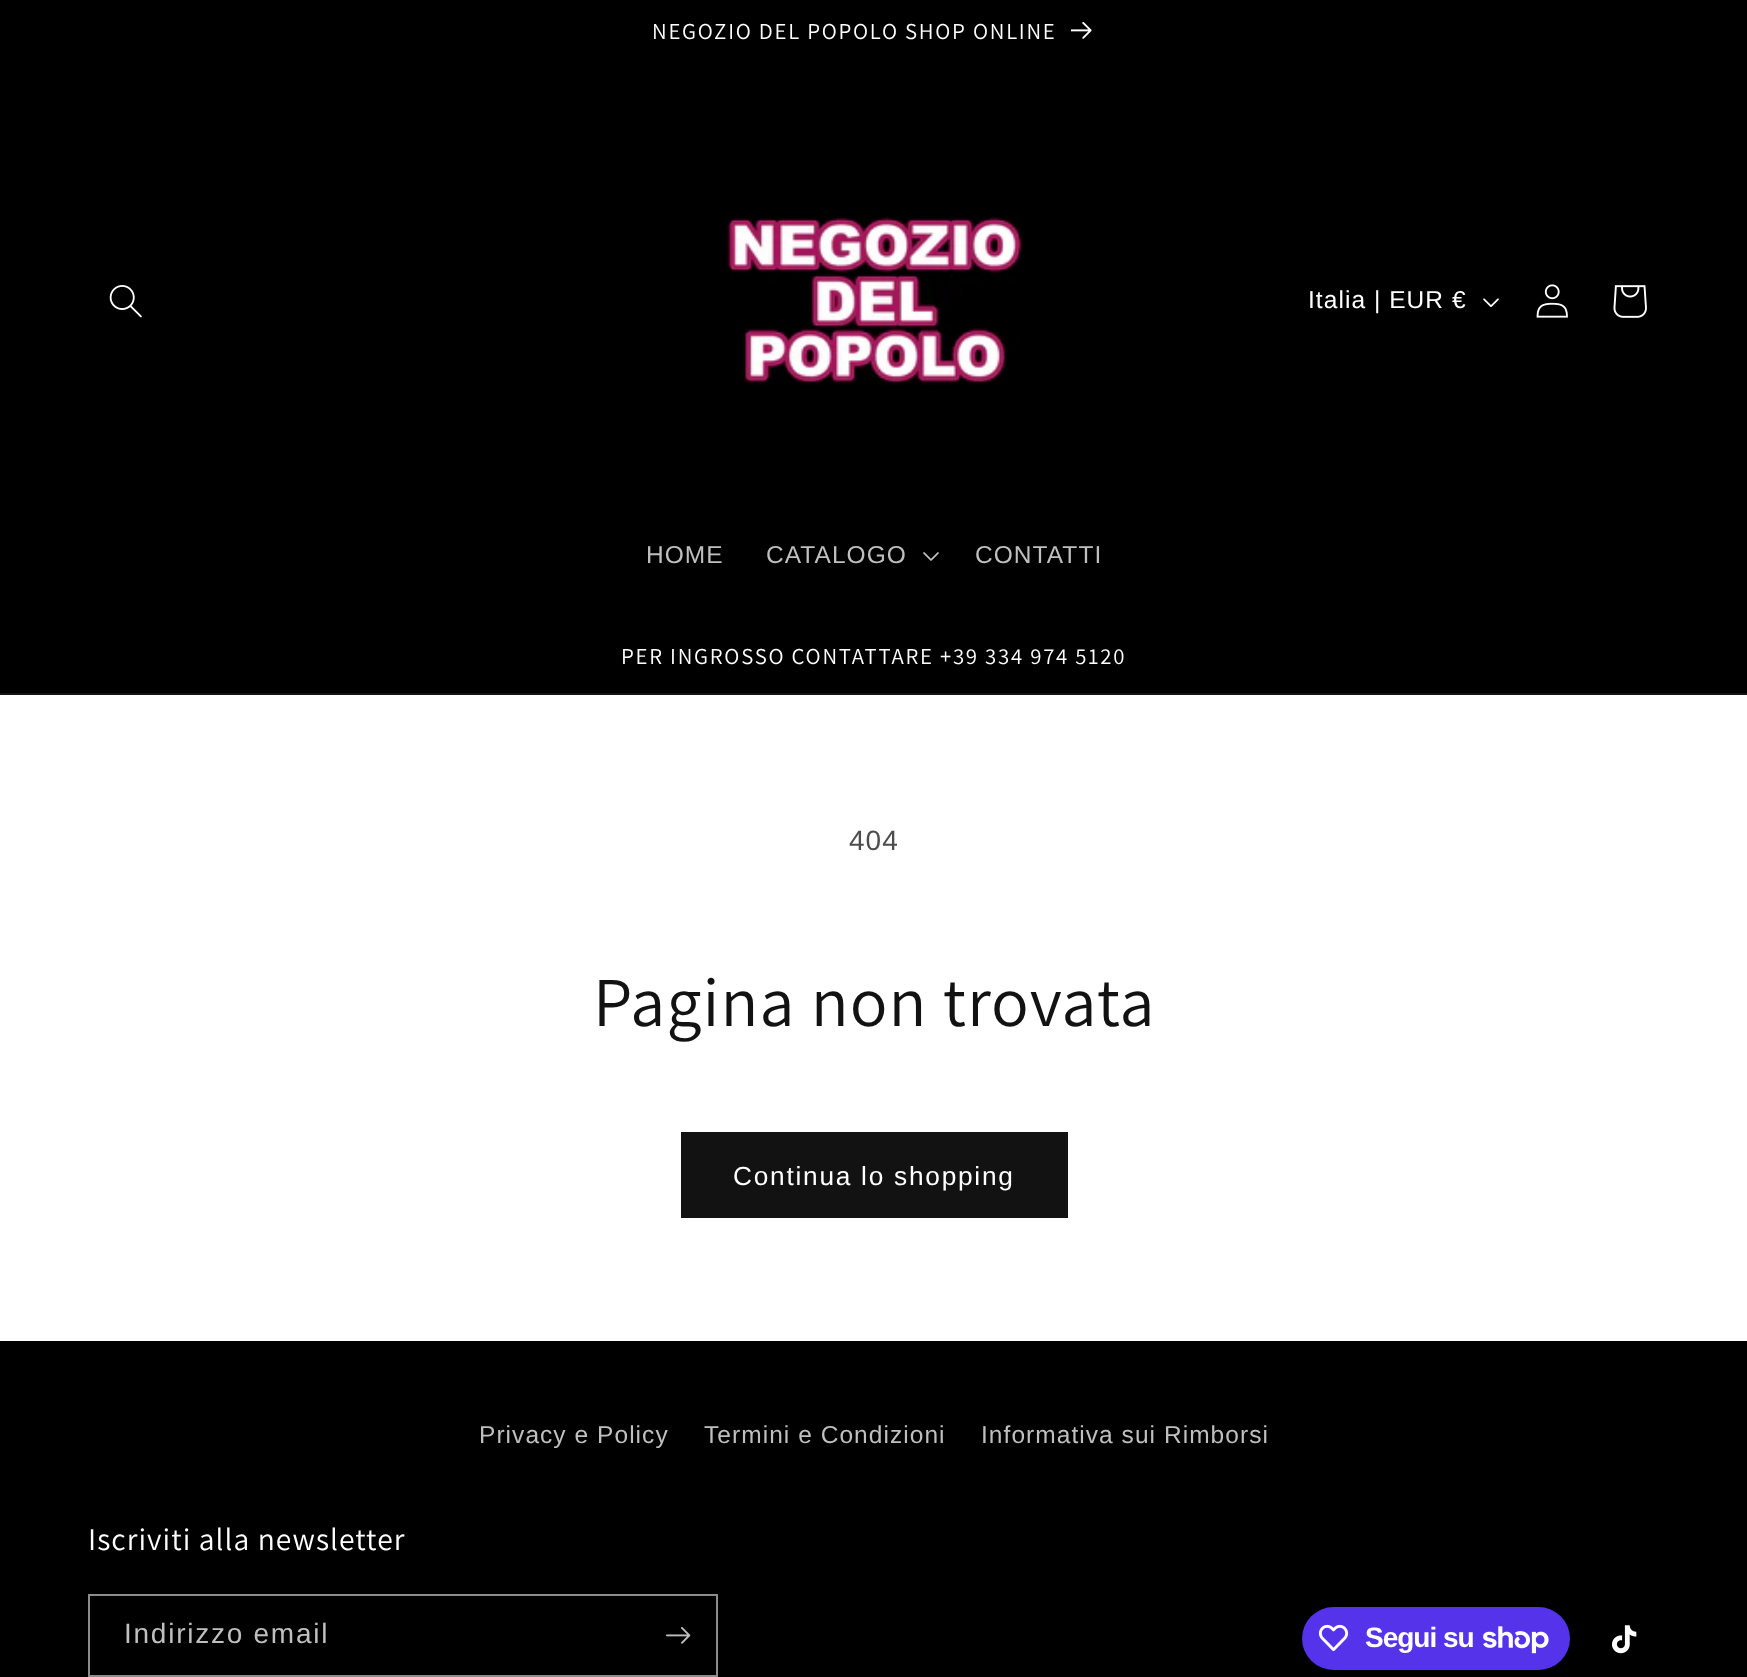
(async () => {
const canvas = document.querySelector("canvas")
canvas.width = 1747
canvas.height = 1677
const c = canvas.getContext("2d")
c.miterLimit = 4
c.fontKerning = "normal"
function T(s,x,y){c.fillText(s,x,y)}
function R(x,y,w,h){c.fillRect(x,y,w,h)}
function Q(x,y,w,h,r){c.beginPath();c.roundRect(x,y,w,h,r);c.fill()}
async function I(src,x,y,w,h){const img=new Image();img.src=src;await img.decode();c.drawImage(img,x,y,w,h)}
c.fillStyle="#fff"
R(0,0,1747,1677)
c.fillStyle="#000"
R(0,0,1747,693)
c.letterSpacing="1.75px"
c.font="22.75px Assistant"
c.fillStyle="#fff"
T("NEGOZIO DEL POPOLO SHOP ONLINE",652,39)
await I("1.png",1071,22,21,17)
await I("2.png",109,285,33,33)
await I("3.png",725,214,298,171)
c.letterSpacing="1.05px"
c.font="24.5px Liberation Sans"
T("Italia | EUR €",1308,308)
await I("4.png",1483,298,16,9)
await I("5.png",1536,284,32,34)
await I("6.png",1613,285,34,33)
c.fillStyle="#bfbfbf"
T("HOME",646,563)
T("CATALOGO",766,563)
await I("7.png",923,552,16,9)
T("CONTATTI",975,563)
c.fillStyle="#141414"
R(0,693,1747,2)
c.letterSpacing="1.75px"
c.font="22.75px Assistant"
c.fillStyle="#fff"
T("PER INGROSSO CONTATTARE +39 334 974 5120",621,664)
c.letterSpacing="1.05px"
c.font="28px Liberation Sans"
c.fillStyle="#4d4d4d"
T("404",849,850)
c.font="70px Assistant"
c.fillStyle="#121212"
T("Pagina non trovata",593,1026)
R(681,1132,387,86)
c.letterSpacing="1.75px"
c.font="26.25px Liberation Sans"
c.fillStyle="#fff"
T("Continua lo shopping",733,1185)
c.fillStyle="#000"
R(0,1341,1747,336)
c.letterSpacing="1.05px"
c.font="24.5px Liberation Sans"
c.fillStyle="#bfbfbf"
T("Privacy e Policy",479,1443)
T("Termini e Condizioni",704,1443)
T("Informativa sui Rimborsi",981,1443)
c.font="31.5px Assistant"
c.fillStyle="#fff"
T("Iscriviti alla newsletter",88,1550)
c.strokeStyle="#8c8c8c"
c.lineWidth=2
c.strokeRect(89,1595,628,81)
c.letterSpacing="1.75px"
c.font="28px Liberation Sans"
c.fillStyle="#bfbfbf"
T("Indirizzo email",124,1643)
await I("8.png",666,1627,25,17)
c.fillStyle="#5433eb"
Q(1302,1607,268,63,31.5)
await I("9.png",1318,1624,31,28)
c.letterSpacing="-1px"
c.font="bold 28px Liberation Sans"
c.fillStyle="#fff"
T("Segui su",1365,1647)
await I("10.png",1483,1626,66,28)
await I("11.png",1612,1625,25,29)
})()
